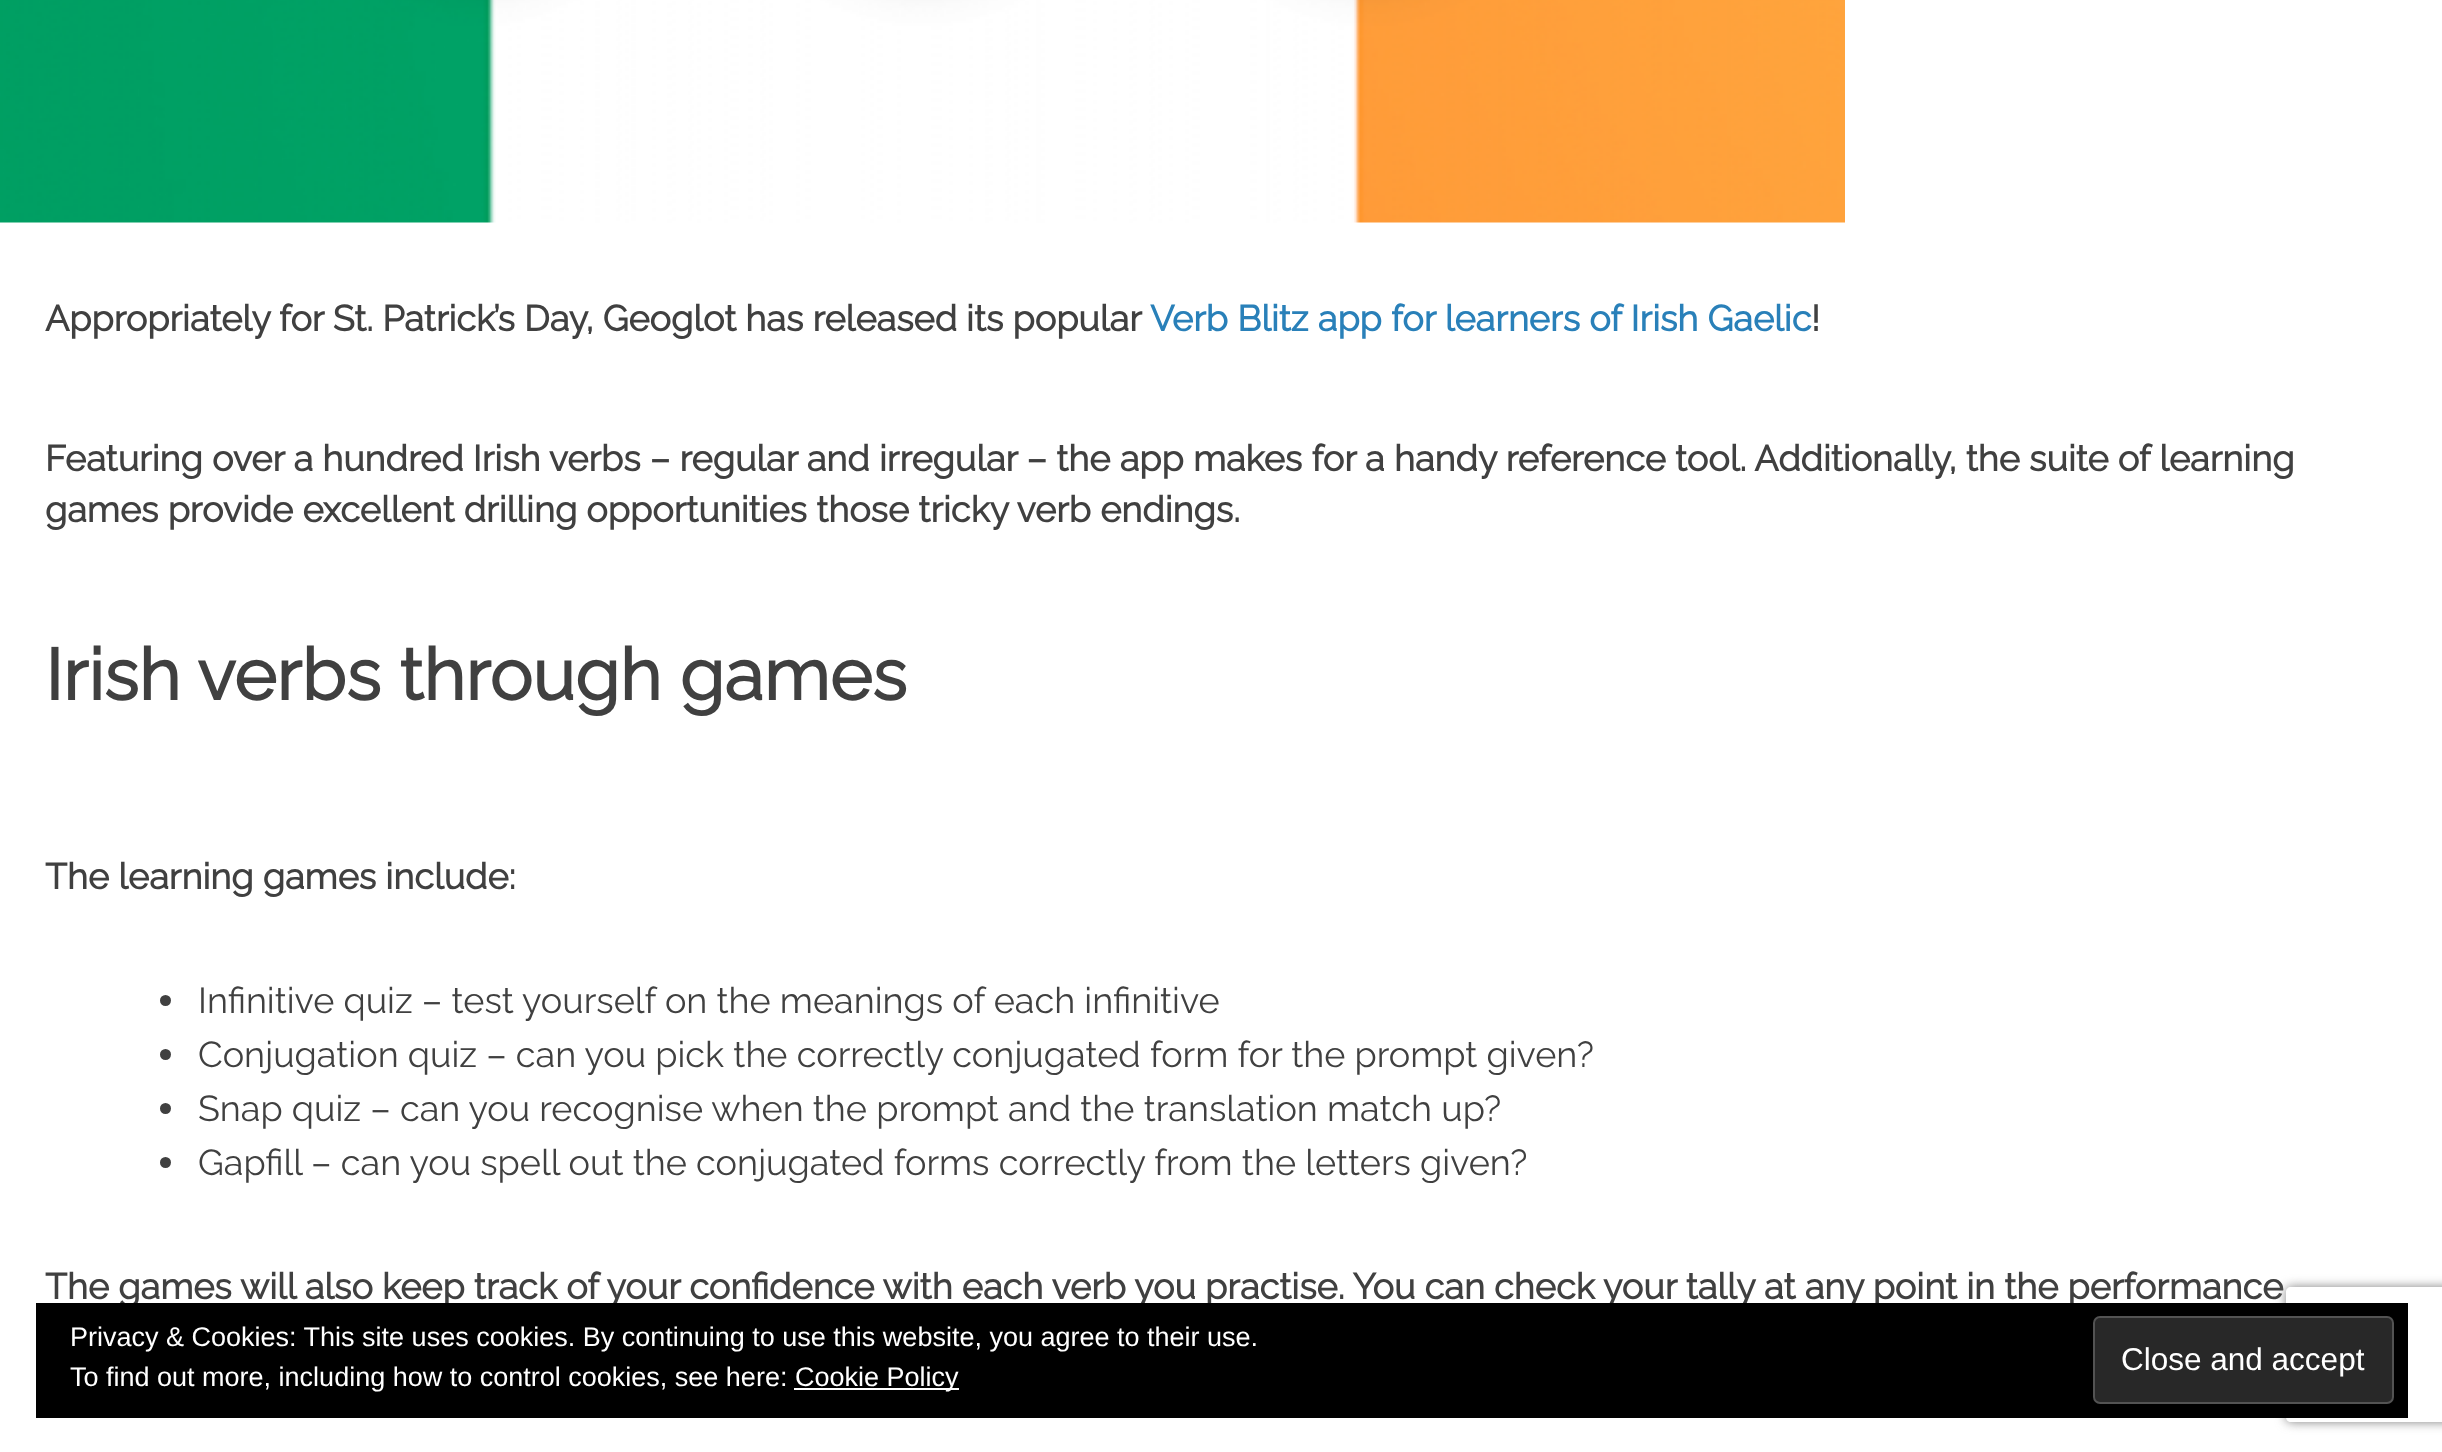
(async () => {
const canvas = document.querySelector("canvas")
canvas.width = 2442
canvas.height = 1452
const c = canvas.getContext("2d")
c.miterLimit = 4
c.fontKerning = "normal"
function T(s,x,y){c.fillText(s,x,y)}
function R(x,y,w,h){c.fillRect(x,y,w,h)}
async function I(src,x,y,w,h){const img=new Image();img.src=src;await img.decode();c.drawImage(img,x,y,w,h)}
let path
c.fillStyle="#fff"
R(0,0,2442,1452)
await I("1.png",0,0,1845,223)
c.wordSpacing="-0.1px"
c.font="bold 36px Raleway"
c.fillStyle="#404040"
T("Appropriately for St. Patrick’s Day, Geoglot has released its popular",45,331)
c.wordSpacing="0px"
c.fillStyle="#2980b9"
T("Verb Blitz app for learners of Irish Gaelic",1150,331)
c.fillStyle="#404040"
T("!",1811,331)
T("Featuring over a hundred Irish verbs – regular and irregular – the app makes for a handy reference tool. Additionally, the suite of learning",45,471)
T("games provide excellent drilling opportunities those tricky verb endings.",45,522)
c.font="bold 72px Raleway"
T("Irish verbs through games",45,700)
c.font="bold 36px Raleway"
T("The learning games include:",45,889)
c.beginPath()
c.arc(165.5,1000.5,5.5,0,7)
c.fill()
c.font="100 36px Raleway"
T("Infinitive quiz – test yourself on the meanings of each infinitive",198,1013)
c.beginPath()
c.arc(165.5,1054.5,5.5,0,7)
c.fill()
T("Conjugation quiz – can you pick the correctly conjugated form for the prompt given?",198,1067)
c.beginPath()
c.arc(165.5,1108.5,5.5,0,7)
c.fill()
T("Snap quiz – can you recognise when the prompt and the translation match up?",198,1121)
c.beginPath()
c.arc(165.5,1162.5,5.5,0,7)
c.fill()
T("Gapfill – can you spell out the conjugated forms correctly from the letters given?",198,1175)
c.font="bold 36px Raleway"
T("The games will also keep track of your confidence with each verb you practise. You can check your tally at any point in the performance",45,1299)
c.save()
path = new Path2D("M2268 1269h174v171h-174zm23 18h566c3 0 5 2 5 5v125c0 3-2 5-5 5h-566c-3 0-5-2-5-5v-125c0-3 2-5 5-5z")
c.clip(path,"evenodd")
c.fillStyle="#808080"
c.filter="blur(5.5px)"
c.beginPath()
c.roundRect(2286,1287,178,135,5)
c.fill()
c.filter="none"
c.restore()
c.fillStyle="#000"
R(36,1303,2372,115)
c.font="27px Liberation Sans"
c.fillStyle="#fff"
T("Privacy & Cookies: This site uses cookies. By continuing to use this website, you agree to their use.",70,1346)
T("To find out more, including how to control cookies, see here:",70,1386)
R(794,1388,165,2)
T("Cookie Policy",795,1386)
c.fillStyle="#282828"
c.beginPath()
c.roundRect(2094,1317,299,86,6)
c.fill()
c.strokeStyle="#535353"
c.lineWidth=2
c.stroke()
c.font="31.5px Liberation Sans"
c.fillStyle="#fff"
T("Close and accept",2121,1370)
})()
